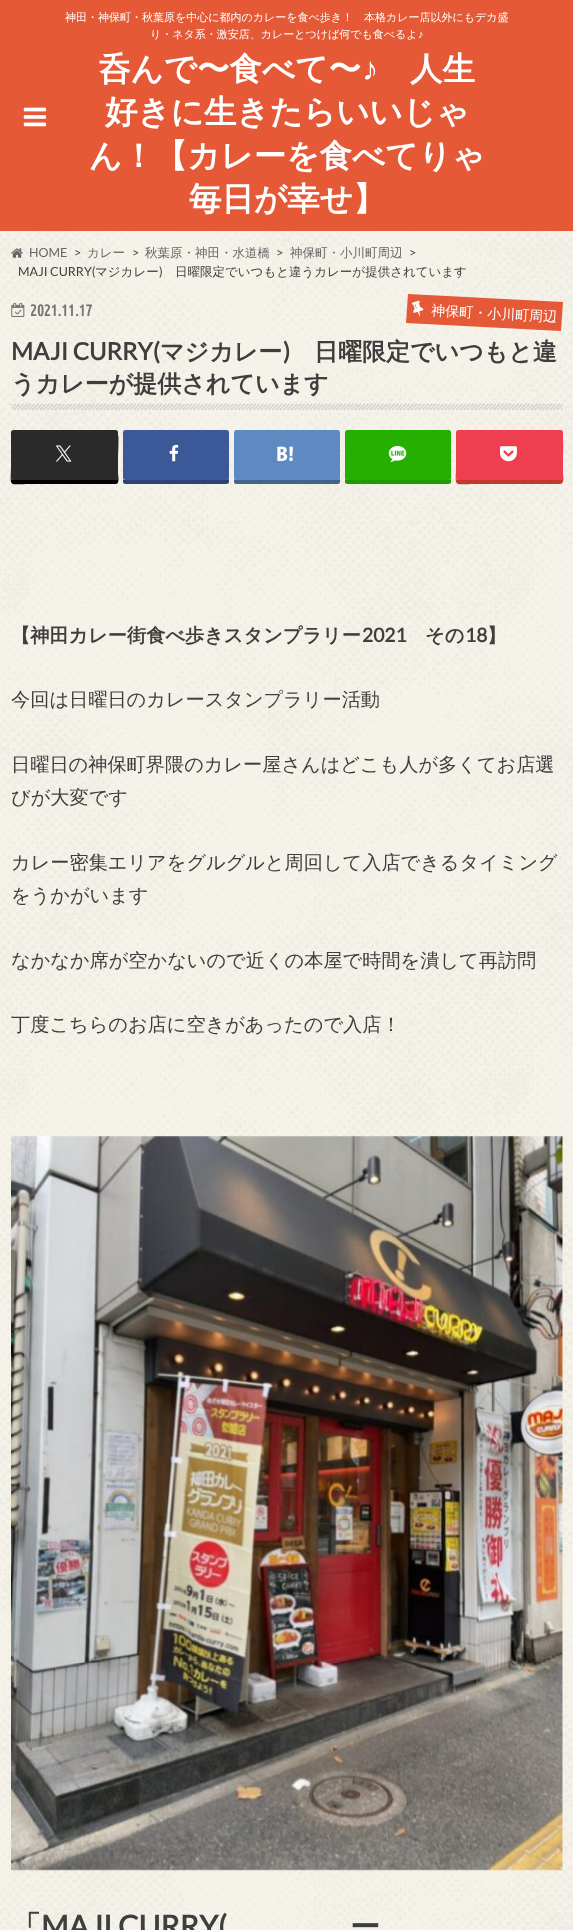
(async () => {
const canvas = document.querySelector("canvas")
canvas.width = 573
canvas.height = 1930
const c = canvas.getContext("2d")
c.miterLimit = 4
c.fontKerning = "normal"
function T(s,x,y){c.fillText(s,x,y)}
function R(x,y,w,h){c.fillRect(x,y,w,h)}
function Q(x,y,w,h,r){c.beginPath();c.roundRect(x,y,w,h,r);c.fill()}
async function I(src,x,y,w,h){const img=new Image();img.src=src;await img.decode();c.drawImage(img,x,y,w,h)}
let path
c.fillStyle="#fff"
R(0,0,573,1930)
await I("1.png",0,231,573,1699)
c.fillStyle="#e55937"
R(0,0,573,231)
c.font="500 11px WenQuanYi Zen Hei"
c.fillStyle="#fff"
T("神田・神保町・秋葉原を中心に都内のカレーを食べ歩き！　本格カレー店以外にもデカ盛",65,21)
T("り・ネタ系・激安店、カレーとつけば何でも食べるよ",150,38)
c.font="11px Liberation Sans"
T("♪",418,38)
await I("2.png",23,107,24,20)
c.font="bold 32.5px WenQuanYi Zen Hei"
T("呑んで〜食べて〜",98,80)
c.font="bold 32.5px Liberation Sans"
T("♪",362,80)
c.font="bold 32.5px WenQuanYi Zen Hei"
T("人生",410,80)
T("好きに生きたらいいじゃ",105,123)
T("ん！【カレーを食べてりゃ",89,167)
T("毎日が幸せ】",189,210)
await I("3.png",11,248,12,10)
c.font="12.5px Lato"
c.fillStyle="#666"
T("HOME",29,257)
c.fillStyle="#3e3e3e"
T(">",74,257)
c.font="500 12.5px WenQuanYi Zen Hei"
c.fillStyle="#666"
T("カレー",87,257)
c.font="12.5px Lato"
c.fillStyle="#3e3e3e"
T(">",132,257)
c.font="500 12.5px WenQuanYi Zen Hei"
c.fillStyle="#666"
T("秋葉原・神田・水道橋",145,257)
c.font="12.5px Lato"
c.fillStyle="#3e3e3e"
T(">",276,257)
c.font="500 12.5px WenQuanYi Zen Hei"
c.fillStyle="#666"
T("神保町・小川町周辺",290,257)
c.font="12.5px Lato"
c.fillStyle="#3e3e3e"
T(">",409,257)
T("MAJI CURRY(",18,276)
c.font="500 12.5px WenQuanYi Zen Hei"
T("マジカレー",95,276)
c.font="12.5px Lato"
T(")",159,276)
c.font="500 12.5px WenQuanYi Zen Hei"
T("日曜限定でいつもと違うカレーが提供されています",175,276)
await I("4.png",11,302,14,15)
c.font="bold 16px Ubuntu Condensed"
c.fillStyle="#747371"
T("2021.11.17",30,316)
c.fillStyle="#e55937"
path = new Path2D("M408 294l155 8l-2 29l-155-8z")
c.fill(path)
await I("5.png",412,300,12,16)
c.font="500 14px WenQuanYi Zen Hei"
c.fillStyle="#fff"
c.save()
c.translate(431,315)
c.rotate(3 * Math.PI / 180)
c.fillText("神保町・小川町周辺",0,0)
c.restore()
await I("6.png",11,403,552,7)
c.font="bold 24px Lato"
c.fillStyle="#3e3e3e"
T("MAJI CURRY(",11,360)
c.font="bold 24px WenQuanYi Zen Hei"
T("マジカレー",160,360)
c.font="bold 24px Lato"
T(")",283,360)
c.font="bold 24px WenQuanYi Zen Hei"
T("日曜限定でいつもと違",314,360)
T("うカレーが提供されています",11,392)
c.fillStyle="#000"
path = new Path2D("M11 435v31c0 22-4 18 19 18h86c4 0 2-9 2-10v-15c0-3 1-22 0-24v43c0 1-2 2-3 2h-101c-2 0-3-1-3-2z")
c.fill(path)
c.fillStyle="#2a2a2a"
Q(11,430,107,50,2.5)
await I("7.png",55,445,17,17)
c.fillStyle="#2c4373"
path = new Path2D("M123 479v3c0 1 1 2 3 2h100c2 0 3-1 3-2v-47v43c0 1-1 2-3 2h-101c-1 0-2 0-2-1z")
c.fill(path)
c.fillStyle="#3b5998"
Q(123,430,106,50,2.5)
await I("8.png",169,444,10,18)
c.fillStyle="#43638b"
path = new Path2D("M234 479v3c0 1 1 2 2 2h102c1 0 2-1 2-2v-4c0 1-1 2-2 2h-102c-1 0-2-1-2-1z")
c.fill(path)
c.fillStyle="#5d8ac1"
Q(234,430,106,50,2.5)
await I("9.png",277,446,16,16)
c.fillStyle="#219900"
path = new Path2D("M345 478v4c0 1 1 2 3 2h100c2 0 3-1 3-2v-3c0 0-1 1-2 1h-101c-2 0-3-1-3-2z")
c.fill(path)
c.fillStyle="#25af00"
Q(345,430,106,50,2.5)
await I("10.png",388,445,19,17)
c.fillStyle="#c0392b"
path = new Path2D("M456 435v31c0 22-4 18 20 18h84c5 0 3-9 3-10v-15c0-3 1-22-1-24v43c0 1-1 2-2 2h-101c-2 0-3-1-3-2z")
c.fill(path)
c.fillStyle="#f03e51"
Q(456,430,107,50,2.5)
await I("11.png",500,446,17,16)
c.font="bold 19.2px WenQuanYi Zen Hei"
c.fillStyle="#3e3e3e"
T("【神田カレー街食べ歩きスタンプラリー",11,642)
c.font="bold 19.2px Lato"
T("2021",362,642)
c.font="bold 19.2px WenQuanYi Zen Hei"
T("その",425,642)
c.font="bold 19.2px Lato"
T("18",465,642)
c.font="bold 19.2px WenQuanYi Zen Hei"
T("】",487,642)
c.font="500 19.2px WenQuanYi Zen Hei"
T("今回は日曜日のカレースタンプラリー活動",11,706)
T("日曜日の神保町界隈のカレー屋さんはどこも人が多くてお店選",11,771)
T("びが大変です",11,804)
T("カレー密集エリアをグルグルと周回して入店できるタイミング",11,869)
T("をうかがいます",11,902)
T("なかなか席が空かないので近くの本屋で時間を潰して再訪問",11,967)
T("丁度こちらのお店に空きがあったので入店！",11,1031)
await I("12.png",11,1136,552,735)
c.font="bold 30px WenQuanYi Zen Hei"
T("「",11,1937)
c.font="bold 30px Lato"
T("MAJI CURRY(",41,1937)
c.font="bold 30px WenQuanYi Zen Hei"
T("ー",350,1937)
})()
